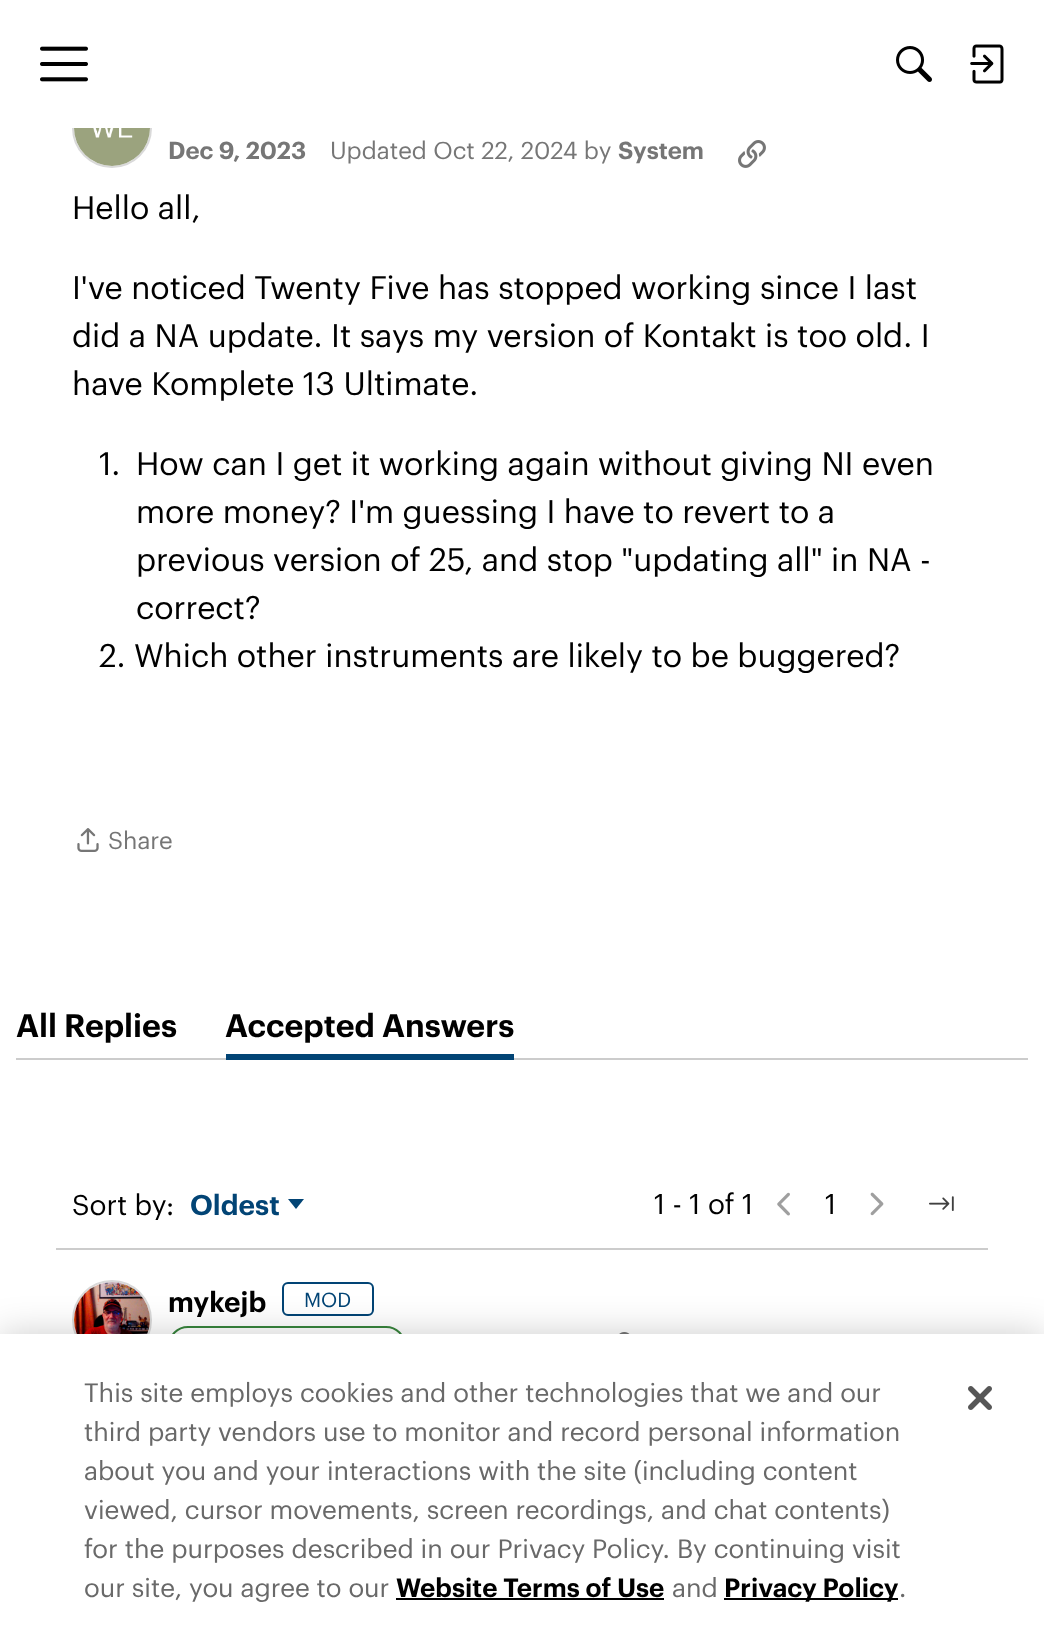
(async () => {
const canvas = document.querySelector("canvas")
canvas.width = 1044
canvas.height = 1627
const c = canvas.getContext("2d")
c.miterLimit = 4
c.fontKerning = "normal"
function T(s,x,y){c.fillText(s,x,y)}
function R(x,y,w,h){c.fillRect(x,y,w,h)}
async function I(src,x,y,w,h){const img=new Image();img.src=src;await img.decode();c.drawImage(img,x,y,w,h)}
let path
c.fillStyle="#fff"
R(0,0,1044,1627)
await I("1.png",40,46,48,36)
await I("2.png",896,46,36,36)
await I("3.png",970,44,34,40)
c.beginPath()
c.arc(112,128,39,0,7)
c.strokeStyle="#d9d9d9"
c.lineWidth=2
c.stroke()
R(72,88,80,40)
await I("4.png",74,128,76,38)
c.font="600 24px Graphik"
c.fillStyle="#767676"
T("Dec 9, 2023",168,159)
c.font="24px Graphik"
T("Updated Oct 22, 2024 by",330,159)
c.font="600 24px Graphik"
T("System",618,159)
await I("5.png",738,140,28,28)
c.font="32px Graphik"
c.fillStyle="#000"
T("Hello all,",72,219)
T("I've noticed Twenty Five has stopped working since I last",72,299)
T("did a NA update. It says my version of Kontakt is too old. I",72,347)
T("have Komplete 13 Ultimate.",72,395)
T("1.",99,475)
T("How can I get it working again without giving NI even",136,475)
T("more money? I'm guessing I have to revert to a",136,523)
T("previous version of 25, and stop \"updating all\" in NA -",136,571)
T("correct?",136,619)
T("2. Which other instruments are likely to be buggered?",99,667)
await I("6.png",77,828,22,24)
c.font="24px Graphik"
c.fillStyle="#767676"
T("Share",108,849)
c.fillStyle="#ccc"
R(16,1058,1012,2)
c.font="600 32px Graphik"
c.fillStyle="#000"
T("All Replies",16,1037)
T("Accepted Answers",225,1037)
c.fillStyle="#024475"
R(226,1054,288,6)
c.font="28px Graphik"
c.fillStyle="#000"
T("Sort by",72,1215)
T(":",166,1215)
c.font="600 28px Graphik"
c.fillStyle="#024475"
T("Oldest",190,1215)
path = new Path2D("M288 1199h16l-8 10z")
c.fill(path)
c.font="28px Graphik"
c.fillStyle="#000"
T("1 - 1 of 1",654,1214)
await I("7.png",777,1192,13,24)
T("1",825,1214)
await I("8.png",870,1192,14,24)
await I("9.png",929,1196,25,15)
c.fillStyle="#ccc"
R(56,1248,932,2)
c.beginPath()
c.arc(112,1320,39,0,7)
c.stroke()
await I("10.png",74,1282,76,52)
c.font="600 28px Graphik"
c.fillStyle="#000"
T("mykejb",168,1312)
c.beginPath()
c.roundRect(283,1283,90,32,5)
c.strokeStyle="#024475"
c.stroke()
c.font="20px Graphik"
c.fillStyle="#024475"
T("MOD",304,1307)
c.beginPath()
c.roundRect(169,1327,236,38,19)
c.strokeStyle="#38853d"
c.stroke()
await I("11.png",619,1332,11,2)
c.fillStyle="#00000033"
c.filter="blur(18px)"
c.beginPath()
c.rect(0,1334,1044,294)
c.fill()
c.filter="none"
c.fillStyle="#fff"
R(0,1334,1044,293)
c.font="26px Graphik"
c.fillStyle="#696969"
T("This site employs cookies and other technologies that we and our",84,1402)
T("third party vendors use to monitor and record personal information",84,1441)
T("about you and your interactions with the site (including content",84,1480)
T("viewed, cursor movements, screen recordings, and chat contents)",84,1519)
T("for the purposes described in our Privacy Policy.",84,1558)
T("By continuing visit",677,1558)
T("our site, you agree to our",84,1597)
c.font="600 26px Graphik"
c.fillStyle="#000"
T("Website Terms of Use",396,1597)
R(396,1598,268,2)
c.font="26px Graphik"
c.fillStyle="#696969"
T("and",672,1597)
c.fillStyle="#000"
R(724,1598,174,2)
c.font="600 26px Graphik"
T("Privacy Policy",724,1597)
c.font="26px Graphik"
c.fillStyle="#696969"
T(".",899,1597)
await I("12.png",968,1386,24,24)
})()
